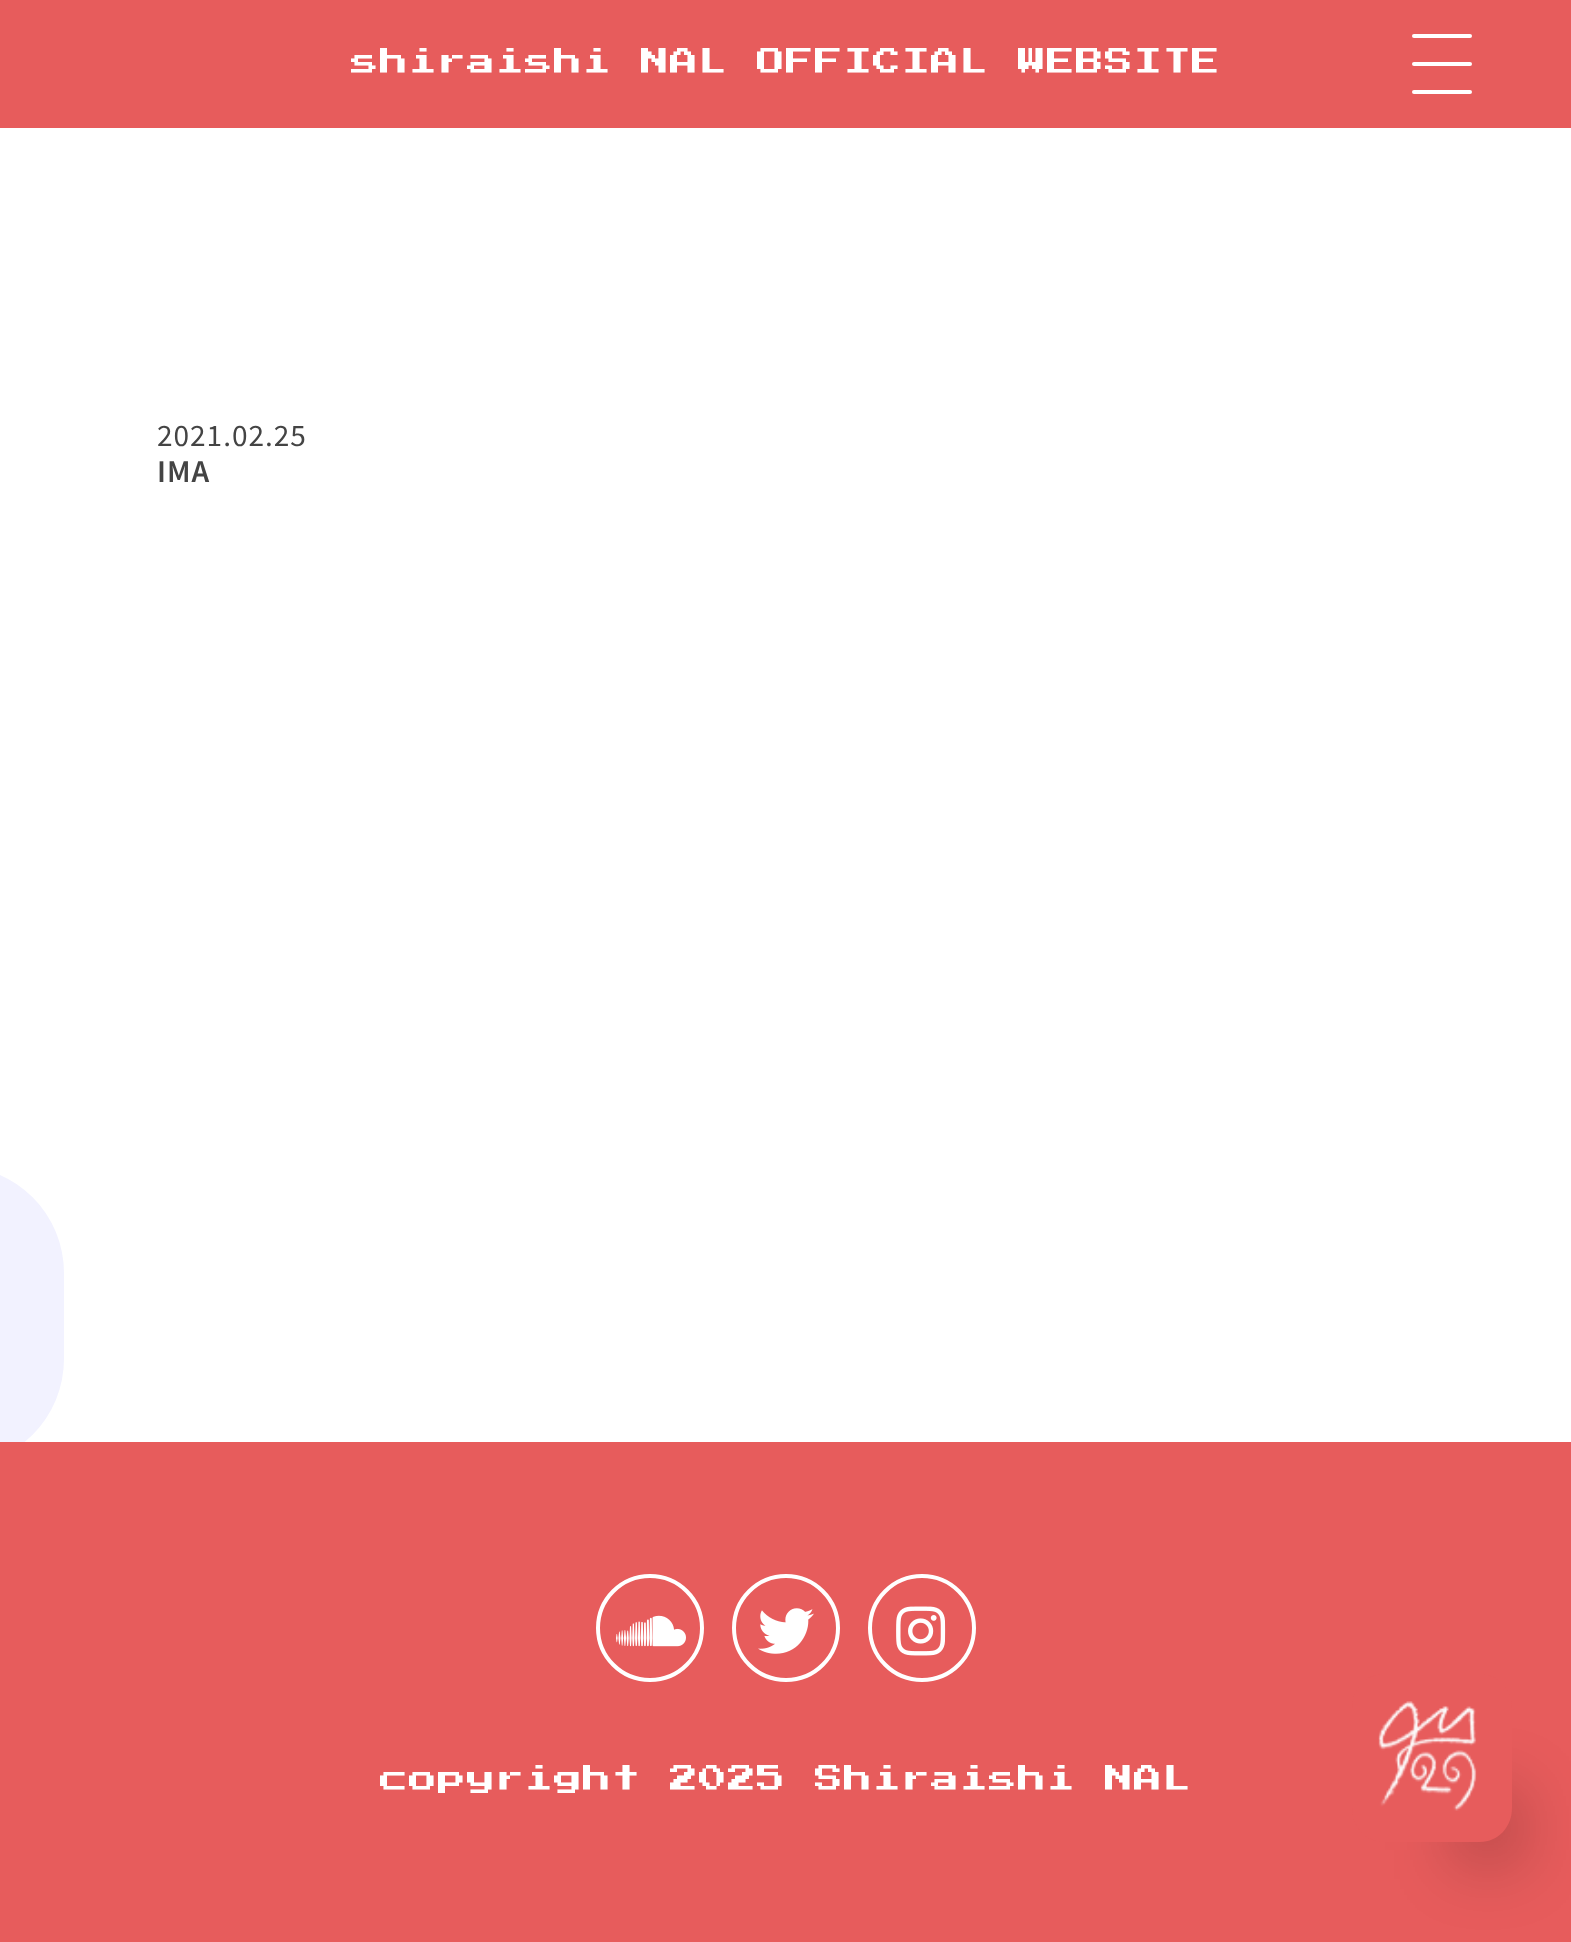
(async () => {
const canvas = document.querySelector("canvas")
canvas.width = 1571
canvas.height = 1942
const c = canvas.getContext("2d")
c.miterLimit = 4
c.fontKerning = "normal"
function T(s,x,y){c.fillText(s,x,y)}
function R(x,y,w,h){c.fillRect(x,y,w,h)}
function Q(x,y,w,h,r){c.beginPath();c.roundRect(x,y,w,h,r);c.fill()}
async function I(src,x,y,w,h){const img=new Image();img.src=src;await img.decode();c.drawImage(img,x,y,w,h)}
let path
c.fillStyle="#fff"
R(0,0,1571,1942)
c.fillStyle="#e75c5c"
R(0,0,1571,128)
c.letterSpacing="1px"
c.font="28px 'Press Start 2P'"
c.fillStyle="#fff"
T("shiraishi NAL OFFICIAL WEBSITE",351,76)
Q(1412,34,60,4,2)
Q(1412,62,60,4,2)
Q(1412,90,60,4,2)
c.font="28px Noto Sans JP"
c.fillStyle="#444"
T("2021.02.25",157,446)
c.font="600 28px Noto Sans JP"
T("IMA",157,482)
c.fillStyle="#f2f2ff"
Q(-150,1166,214,300,150)
c.fillStyle="#e75c5c"
R(0,1442,1571,500)
c.beginPath()
c.arc(650,1628,52,0,7)
c.strokeStyle="#fff"
c.lineWidth=4
c.stroke()
await I("1.png",616,1615,70,32)
c.beginPath()
c.arc(786,1628,52,0,7)
c.stroke()
await I("2.png",758,1608,56,46)
c.beginPath()
c.arc(922,1628,52,0,7)
c.stroke()
await I("3.png",896,1606,50,50)
c.font="28px 'Press Start 2P'"
c.fillStyle="#fff"
T("copyright 2025 Shiraishi NAL",380,1793)
c.fillStyle="#00000066"
c.filter="blur(35px)"
c.beginPath()
c.rect(1464,1800,48,56)
c.fill()
c.filter="none"
c.fillStyle="#e75c5c"
path = new Path2D("M1384 1674h96c18 0 32 15 32 34v100c0 19-14 34-32 34h-96c-18 0-32-15-32-34v-100c0-19 14-34 32-34z")
c.fill(path)
await I("4.png",1378,1701,99,110)
})()
